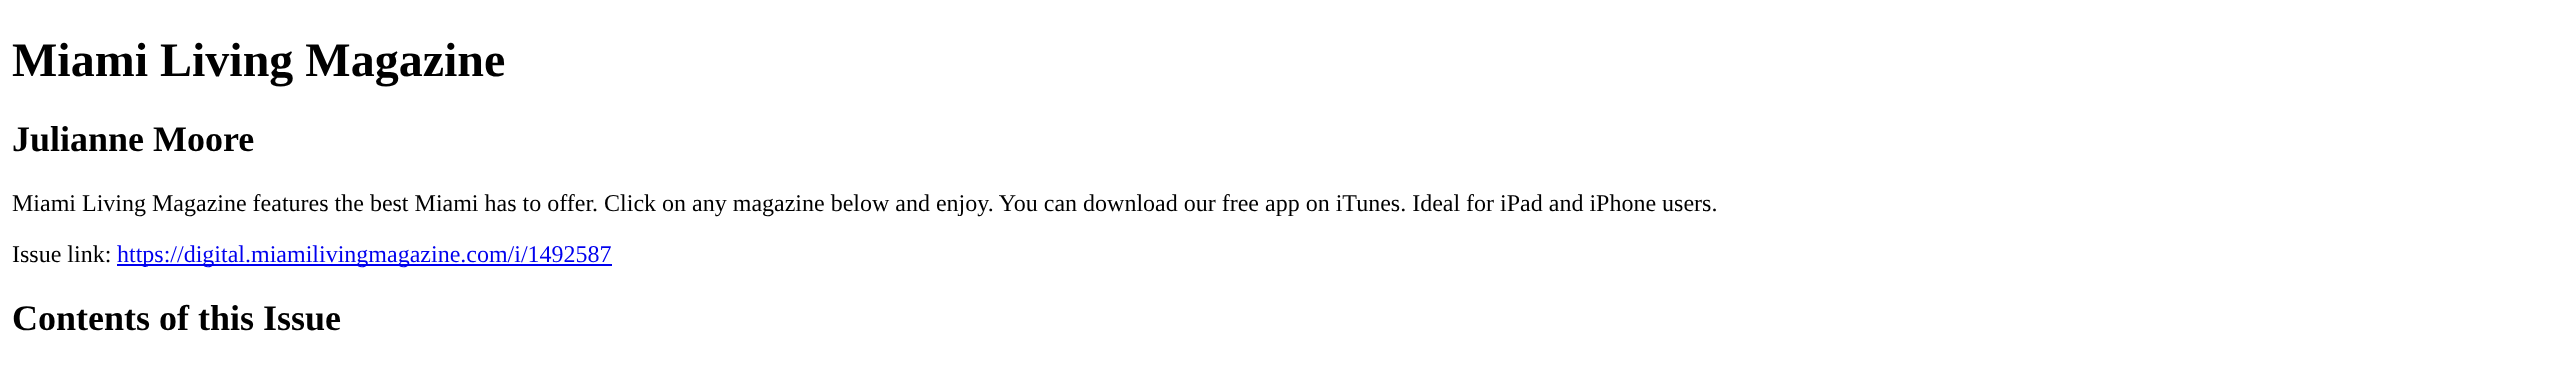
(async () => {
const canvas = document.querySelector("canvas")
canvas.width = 2564
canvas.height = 369
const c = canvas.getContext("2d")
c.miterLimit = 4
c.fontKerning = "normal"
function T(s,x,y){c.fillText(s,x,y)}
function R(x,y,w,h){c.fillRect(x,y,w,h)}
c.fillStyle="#fff"
R(0,0,2564,369)
c.font="bold 48px Liberation Serif"
c.fillStyle="#000"
T("Miami Living Magazine",12,76)
c.font="bold 36px Liberation Serif"
T("Julianne Moore",12,151)
c.font="24px Liberation Serif"
T("Miami Living Magazine features the best Miami has to offer. Click on any magazine below and enjoy. You can download our free app on iTunes. Ideal for iPad and iPhone users.",12,211)
T("Issue link:",12,262)
c.fillStyle="#00e"
R(117,264,495,2)
T("https://digital.miamilivingmagazine.com/i/1492587",117,262)
c.font="bold 36px Liberation Serif"
c.fillStyle="#000"
T("Contents of this Issue",12,330)
})()
